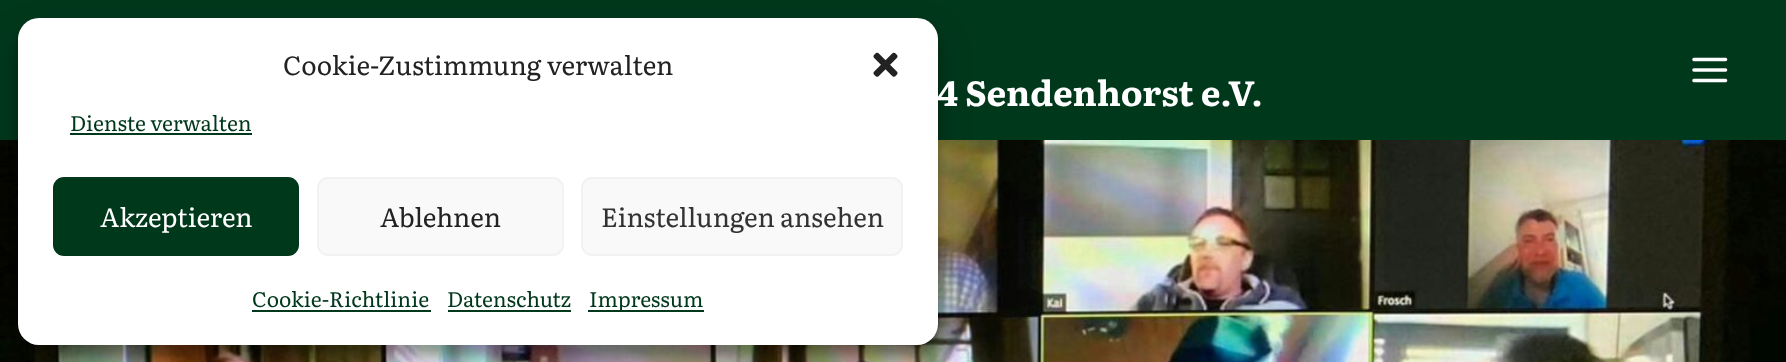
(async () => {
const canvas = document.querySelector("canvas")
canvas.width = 1786
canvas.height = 362
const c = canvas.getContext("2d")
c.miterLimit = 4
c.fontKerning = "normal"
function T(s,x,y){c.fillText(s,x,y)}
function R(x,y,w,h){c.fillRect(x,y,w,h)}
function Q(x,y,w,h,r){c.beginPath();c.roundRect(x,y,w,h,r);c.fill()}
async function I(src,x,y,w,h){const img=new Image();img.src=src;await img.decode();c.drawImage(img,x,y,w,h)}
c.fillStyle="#fff"
R(0,0,1786,362)
c.fillStyle="#00381c"
R(0,0,1786,140)
await I("3.png",0,140,1786,222)
c.fillStyle="#0000003b"
c.filter="blur(5px)"
c.beginPath()
c.roundRect(18,28,920,327,21)
c.fill()
c.filter="none"
c.fillStyle="#00000030"
c.filter="blur(17.5px)"
c.beginPath()
c.roundRect(18,35,920,327,21)
c.fill()
c.filter="none"
c.fillStyle="#fff"
Q(18,18,920,327,21)
c.font="26.25px Literata"
c.fillStyle="#222"
T("Cookie-Zustimmung verwalten",283,75)
await I("1.png",873,52,25,25)
c.font="21px Literata"
c.fillStyle="#00381c"
T("Dienste verwalten",70,131)
R(70,133,182,2)
c.beginPath()
c.roundRect(54,178,244,77,10)
c.fill()
c.strokeStyle="#00381c"
c.lineWidth=2
c.stroke()
c.font="26.25px Literata"
c.fillStyle="#fff"
T("Akzeptieren",100,227)
c.fillStyle="#f9f9f9"
c.beginPath()
c.roundRect(318,178,245,77,10)
c.fill()
c.strokeStyle="#f2f2f2"
c.stroke()
c.fillStyle="#222"
T("Ablehnen",380,227)
c.fillStyle="#f9f9f9"
c.beginPath()
c.roundRect(582,178,320,77,10)
c.fill()
c.stroke()
c.fillStyle="#333"
T("Einstellungen ansehen",601,227)
c.font="21px Literata"
c.fillStyle="#00381c"
T("Cookie-Richtlinie",252,307)
R(252,310,179,2)
T("Datenschutz",447,307)
R(448,310,123,2)
R(588,310,116,2)
T("Impressum",589,307)
await I("2.png",1692,57,36,26)
c.font="bold 35px Literata"
c.fillStyle="#fff"
T("4 Sendenhorst e.V.",937,106)
})()
